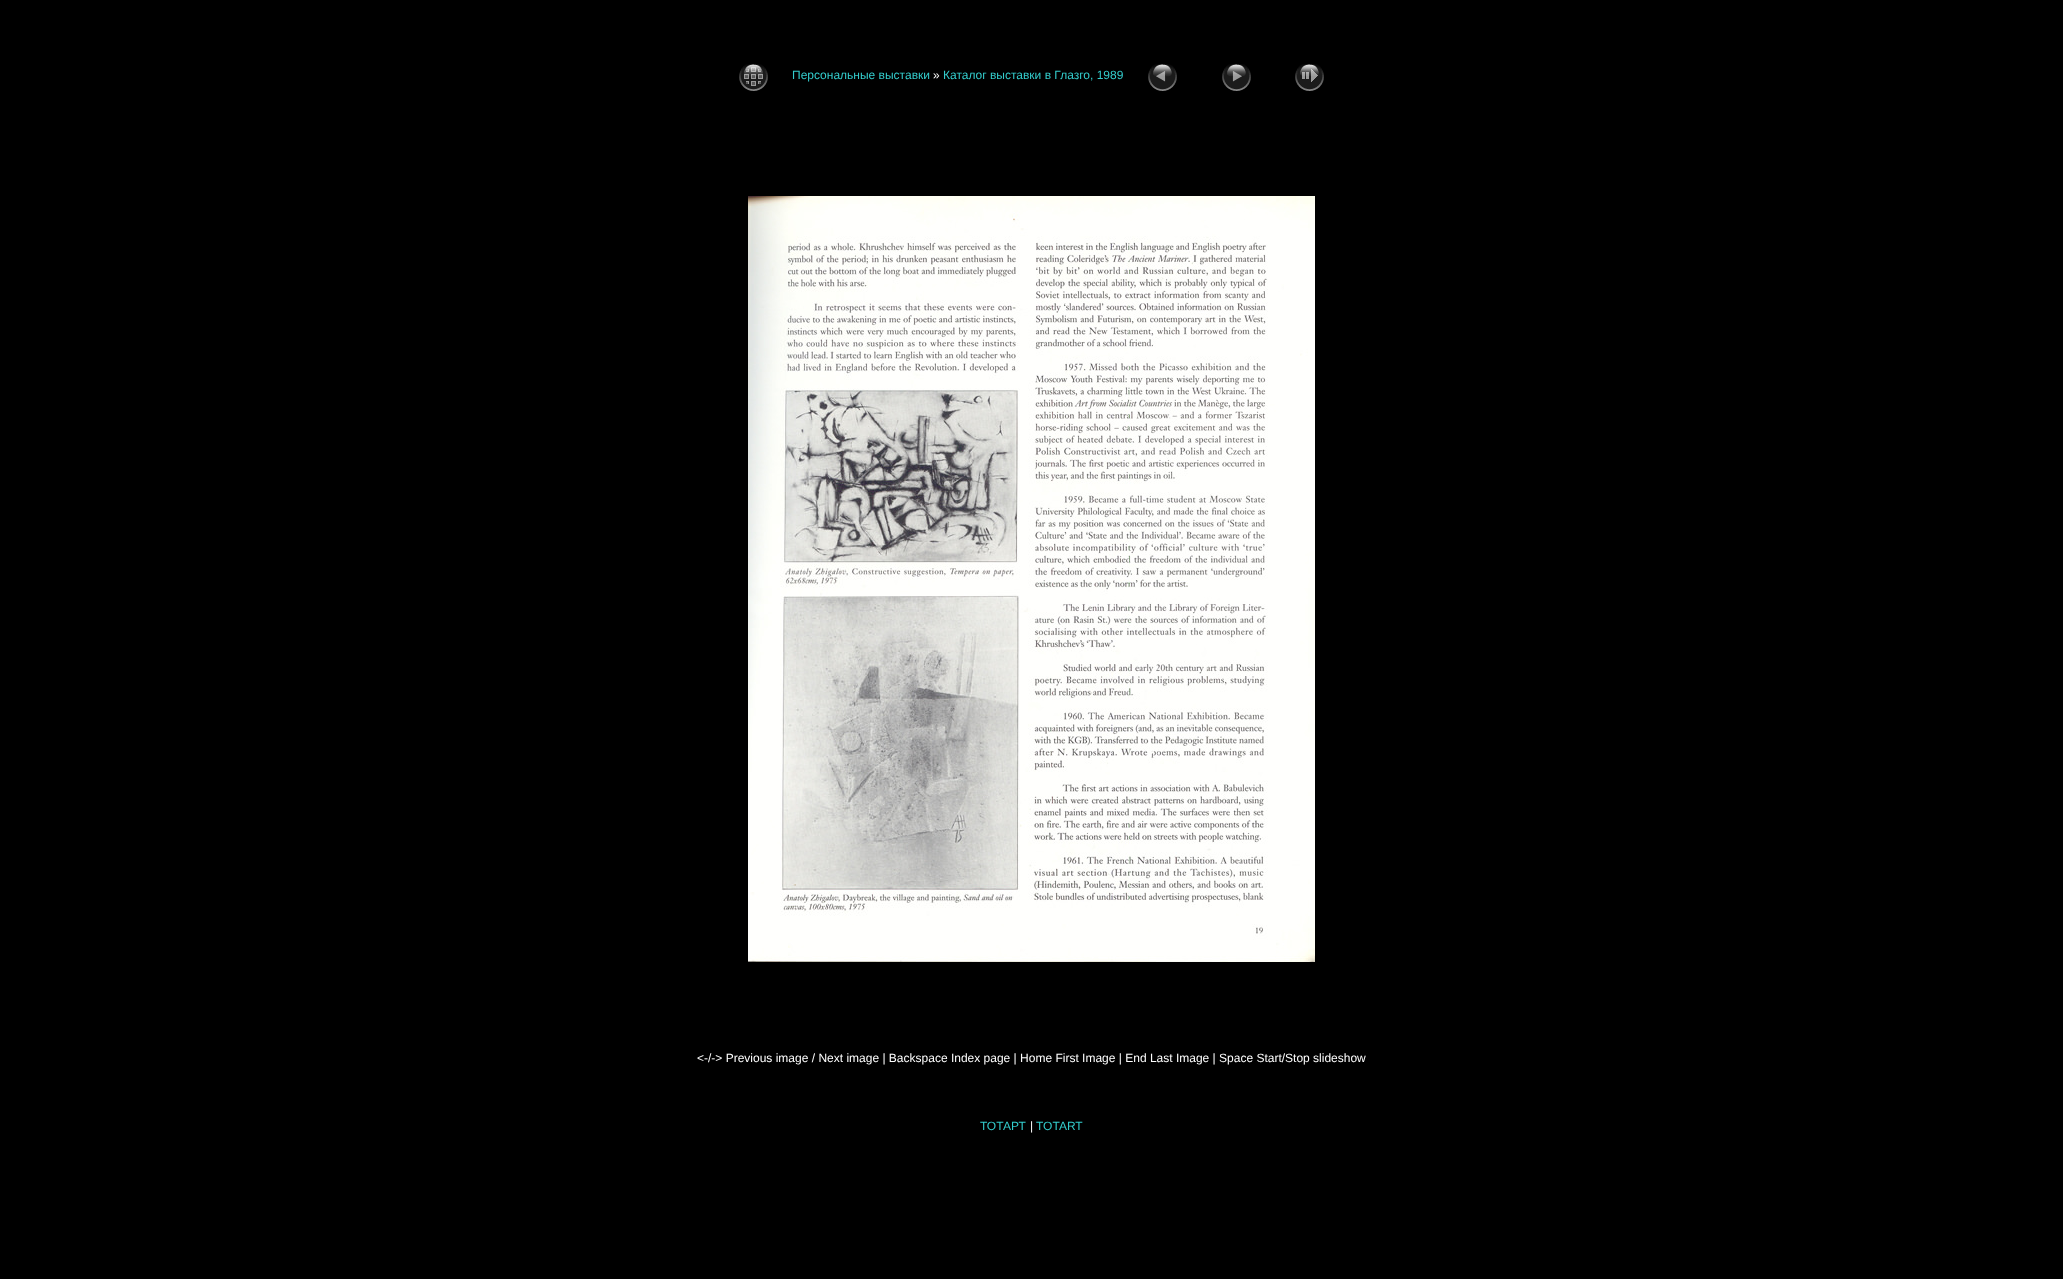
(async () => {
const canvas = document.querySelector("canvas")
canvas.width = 2063
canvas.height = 1279
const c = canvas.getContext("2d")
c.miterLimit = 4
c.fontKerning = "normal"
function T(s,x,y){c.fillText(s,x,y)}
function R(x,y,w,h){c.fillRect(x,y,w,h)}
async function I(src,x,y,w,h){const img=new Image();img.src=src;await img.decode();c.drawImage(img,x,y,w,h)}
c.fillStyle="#000"
R(0,0,2063,1279)
await I("1.png",739,64,29,27)
c.font="12px Liberation Sans"
c.fillStyle="#3cc"
T("Персональные выставки",792,79)
c.fillStyle="#fefefe"
T("»",933,79)
c.fillStyle="#3cc"
T("Каталог выставки в Глазго, 1989",943,79)
await I("2.png",1148,64,29,27)
await I("3.png",1222,64,29,27)
await I("4.png",1295,64,29,27)
await I("5.png",748,196,567,766)
c.fillStyle="#fefefe"
T("<-/-> Previous image / Next image | Backspace Index page | Home First Image | End Last Image | Space Start/Stop slideshow",697,1062)
c.fillStyle="#3cc"
T("ТОТАРТ",980,1130)
c.fillStyle="#fefefe"
T("|",1030,1130)
c.fillStyle="#3cc"
T("TOTART",1036,1130)
})()
